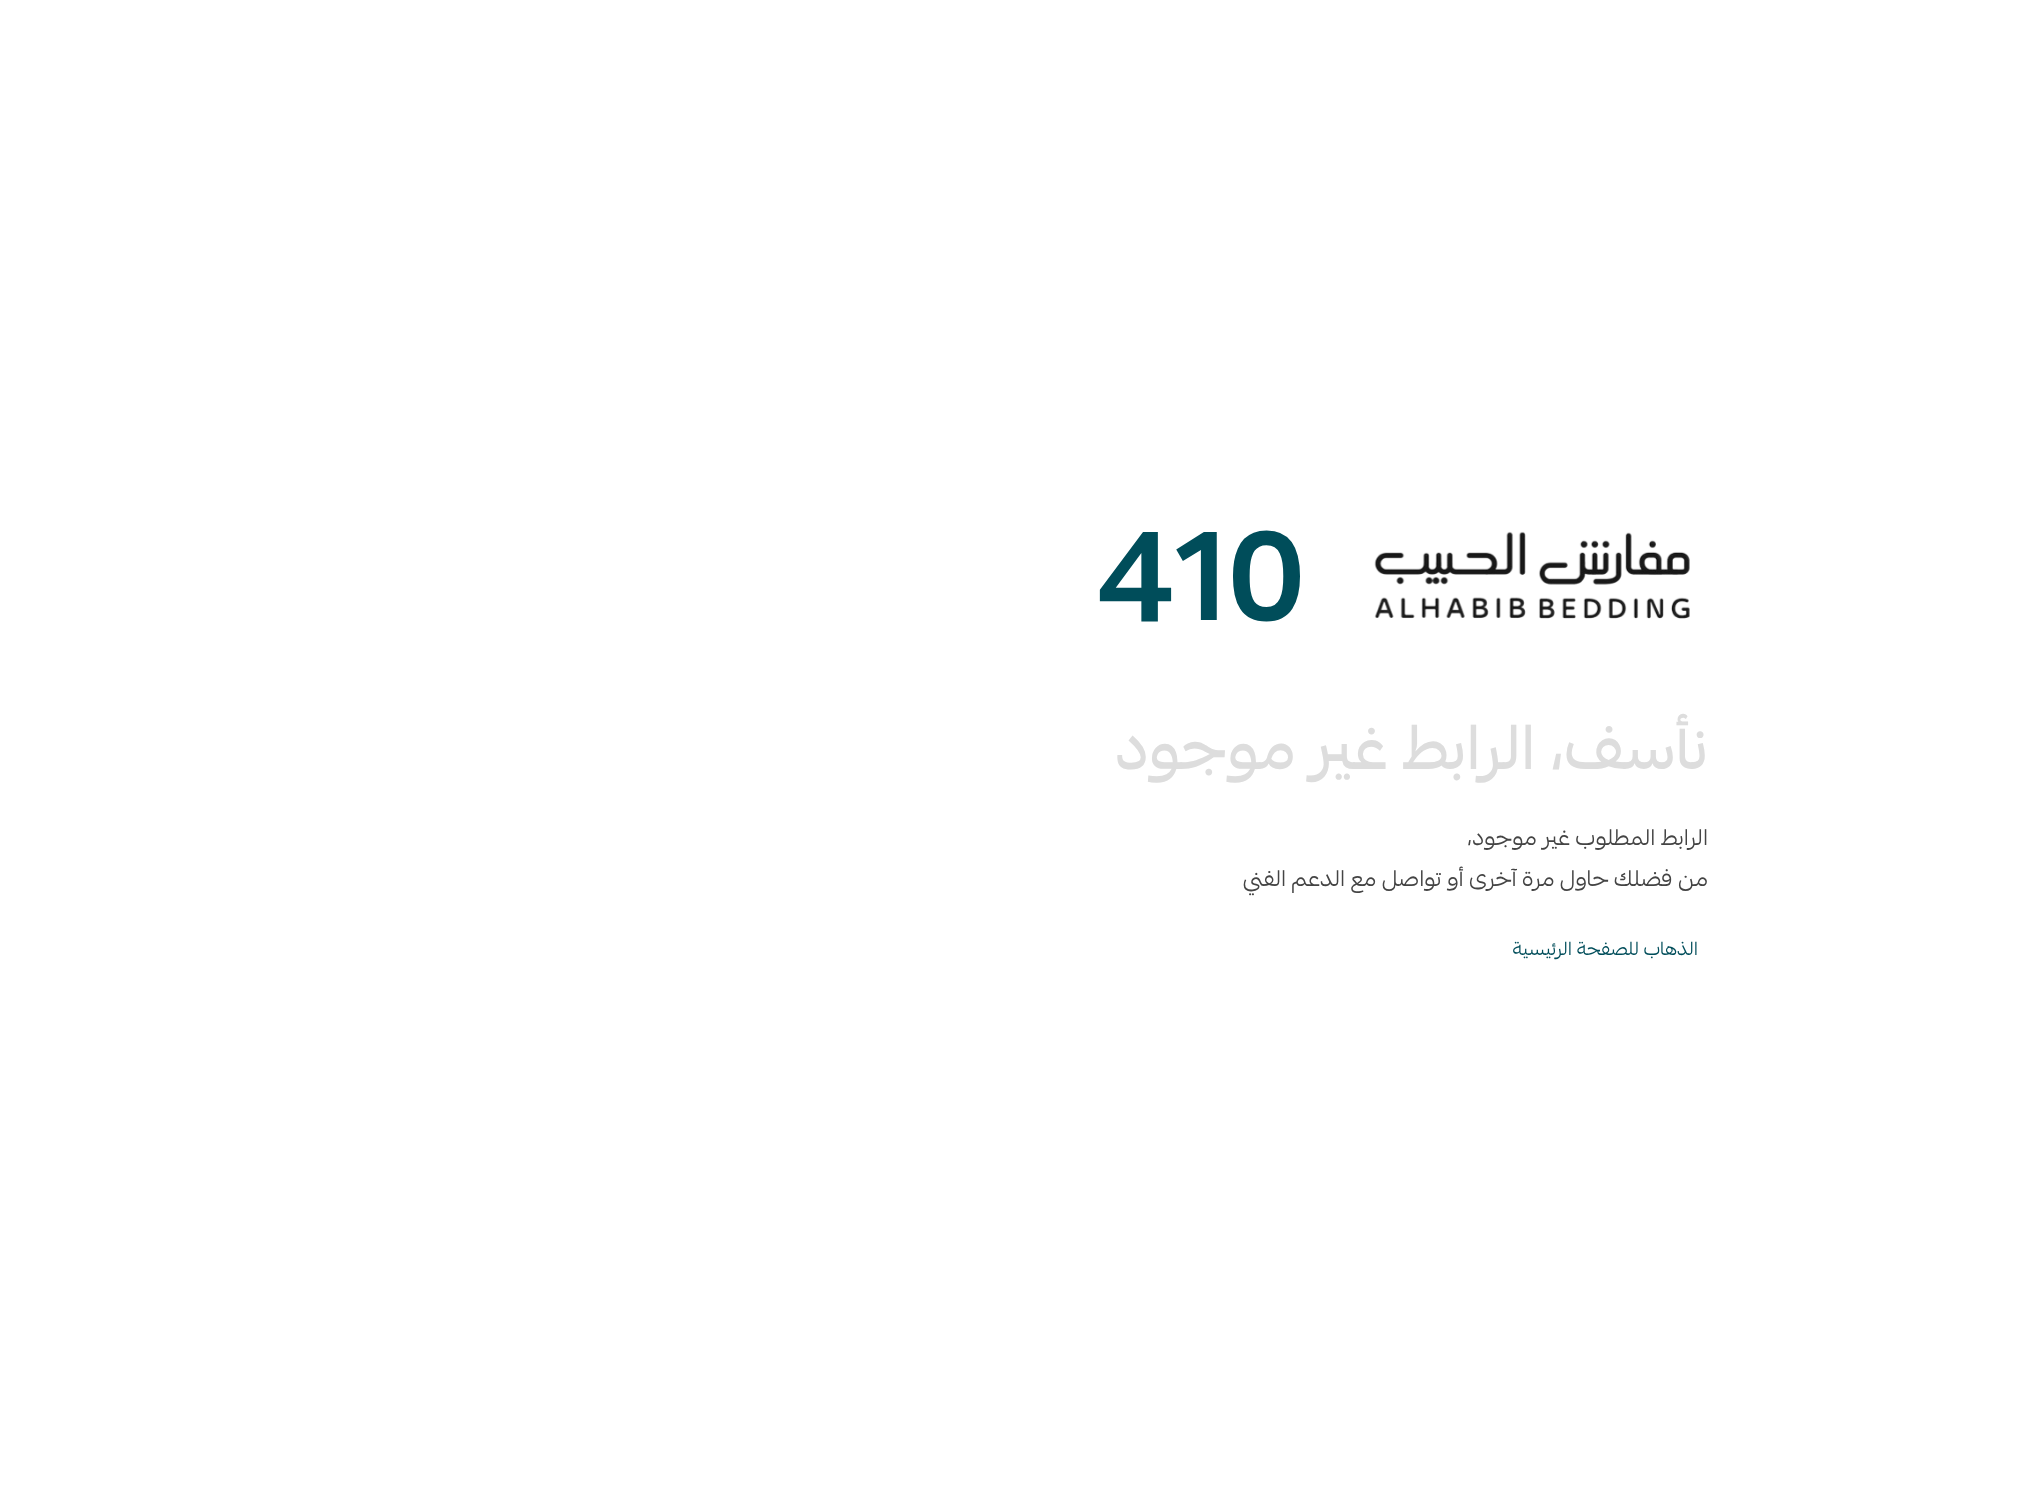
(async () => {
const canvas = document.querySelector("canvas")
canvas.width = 2028
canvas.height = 1498
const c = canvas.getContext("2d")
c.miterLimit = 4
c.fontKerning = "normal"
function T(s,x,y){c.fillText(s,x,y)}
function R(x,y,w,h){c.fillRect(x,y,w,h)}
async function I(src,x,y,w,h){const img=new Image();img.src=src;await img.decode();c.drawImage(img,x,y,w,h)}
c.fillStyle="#fff"
R(0,0,2028,1498)
await I("1.png",1374,531,316,88)
c.font="bold 125px 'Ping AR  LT'"
c.fillStyle="#004d5a"
T("410",1097,620)
c.direction="rtl"
c.font="500 62.5px 'Ping AR  LT'"
c.fillStyle="#ddd"
T("نأسف، الرابط غير موجود",1708,769)
c.font="22.5px 'Ping AR  LT'"
c.fillStyle="#444"
T("الرابط المطلوب غير موجود،",1708,845)
T("من فضلك حاول مرة آخرى أو تواصل مع الدعم الفني",1708,886)
c.font="18.75px 'Ping AR  LT'"
c.fillStyle="#004d5a"
T("الذهاب للصفحة الرئيسية",1698,955)
})()
